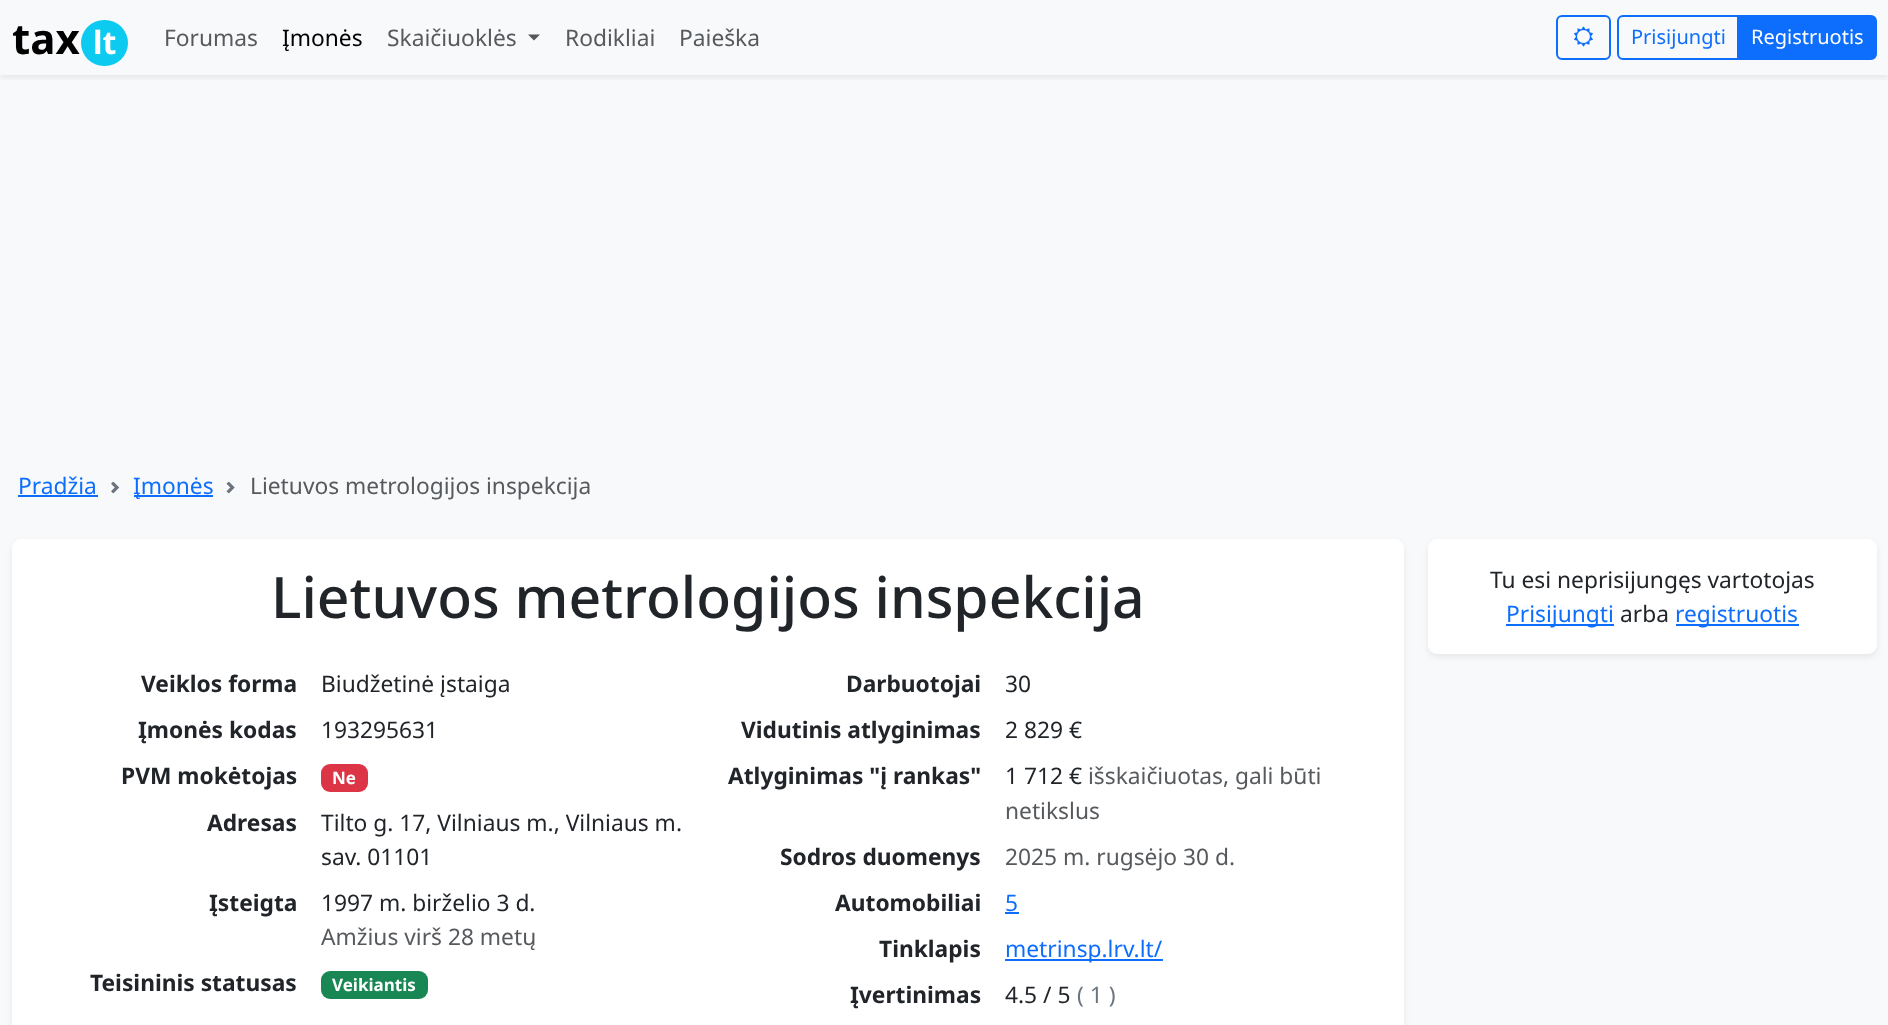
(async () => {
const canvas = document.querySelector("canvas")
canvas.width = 1888
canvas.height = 1025
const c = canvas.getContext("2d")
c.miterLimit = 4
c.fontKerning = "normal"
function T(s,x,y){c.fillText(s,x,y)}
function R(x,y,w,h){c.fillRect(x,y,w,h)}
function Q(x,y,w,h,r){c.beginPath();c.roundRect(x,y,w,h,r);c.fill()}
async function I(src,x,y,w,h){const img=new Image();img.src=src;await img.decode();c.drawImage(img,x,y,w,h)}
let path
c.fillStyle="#f8f9fa"
R(0,0,1888,1025)
c.save()
c.beginPath()
c.rect(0,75,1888,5)
c.clip()
c.fillStyle="#00000012"
c.filter="blur(3px)"
c.beginPath()
c.rect(0,3,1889,75)
c.fill()
c.filter="none"
c.restore()
c.font="bold 42px Noto Sans"
c.fillStyle="#000"
T("tax",12,54)
c.fillStyle="#0dcaf0"
Q(81,20,47,46,23)
c.font="bold 32px Noto Sans"
c.fillStyle="#fff"
T("lt",93,54)
c.font="22.75px Noto Sans"
c.fillStyle="#575a5d"
T("Forumas",164,46)
c.fillStyle="#000"
T("Įmonės",282,46)
c.fillStyle="#575a5d"
T("Skaičiuoklės",387,46)
c.fillStyle="#575758"
path = new Path2D("M528 34.5h12l-6 6z")
c.fill(path)
c.fillStyle="#575a5d"
T("Rodikliai",565,46)
T("Paieška",679,46)
c.beginPath()
c.roundRect(1557,16,53,43,5)
c.strokeStyle="#0d6efd"
c.lineWidth=2
c.stroke()
await I("1.png",1574,26,19,21)
c.beginPath()
c.roundRect(1618,16,120,43,[5,0,0,5])
c.stroke()
c.font="20px Noto Sans"
c.fillStyle="#0d6efd"
T("Prisijungti",1631,44)
c.beginPath()
c.roundRect(1738,16,138,43,[0,5,5,0])
c.fill()
c.stroke()
c.fillStyle="#fff"
T("Registruotis",1751,44)
c.font="22.75px Noto Sans"
c.fillStyle="#0d6efd"
T("Pradžia",18,494)
R(18,495,80,2)
await I("2.png",111,482,9,12)
R(134,495,79,2)
T("Įmonės",133,494)
await I("3.png",226,482,9,12)
c.fillStyle="#575a5d"
T("Lietuvos metrologijos inspekcija",250,494)
c.fillStyle="#00000012"
c.filter="blur(3px)"
c.beginPath()
c.roundRect(12,542,1392,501,9)
c.fill()
c.filter="none"
c.fillStyle="#fff"
Q(12,539,1392,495,9)
c.font="500 57px Noto Sans"
c.fillStyle="#212529"
T("Lietuvos metrologijos inspekcija",271,618)
c.font="bold 22.75px Noto Sans"
T("Veiklos forma",141,692)
c.font="22.75px Noto Sans"
T("Biudžetinė įstaiga",321,692)
c.font="bold 22.75px Noto Sans"
T("Įmonės kodas",138,738)
c.font="22.75px Noto Sans"
T("193295631",321,738)
c.font="bold 22.75px Noto Sans"
T("PVM mokėtojas",121,784)
c.fillStyle="#dc3545"
Q(321,764,47,28,9)
c.font="bold 17px Noto Sans"
c.fillStyle="#fff"
T("Ne",332,784)
c.font="bold 22.75px Noto Sans"
c.fillStyle="#212529"
T("Adresas",207,831)
c.font="22.75px Noto Sans"
T("Tilto g. 17, Vilniaus m., Vilniaus m.",321,831)
T("sav. 01101",321,865)
c.font="bold 22.75px Noto Sans"
T("Įsteigta",209,911)
c.font="22.75px Noto Sans"
T("1997 m. birželio 3 d.",321,911)
c.fillStyle="#575a5d"
T("Amžius virš 28 metų",321,945)
c.font="bold 22.75px Noto Sans"
c.fillStyle="#212529"
T("Teisininis statusas",90,991)
c.fillStyle="#198754"
Q(321,971,107,28,9)
c.font="bold 17px Noto Sans"
c.fillStyle="#fff"
T("Veikiantis",332,991)
c.font="bold 22.75px Noto Sans"
c.fillStyle="#212529"
T("Darbuotojai",846,692)
c.font="22.75px Noto Sans"
T("30",1005,692)
c.font="bold 22.75px Noto Sans"
T("Vidutinis atlyginimas",741,738)
c.font="22.75px Noto Sans"
T("2 829 €",1005,738)
c.font="bold 22.75px Noto Sans"
T("Atlyginimas \"į rankas\"",728,784)
c.font="22.75px Noto Sans"
T("1 712 €",1005,784)
c.fillStyle="#575a5d"
T("išskaičiuotas, gali būti",1088,784)
T("netikslus",1005,819)
c.font="bold 22.75px Noto Sans"
c.fillStyle="#212529"
T("Sodros duomenys",780,865)
c.font="22.75px Noto Sans"
c.fillStyle="#575a5d"
T("2025 m. rugsėjo 30 d.",1005,865)
c.font="bold 22.75px Noto Sans"
c.fillStyle="#212529"
T("Automobiliai",835,911)
c.font="22.75px Noto Sans"
c.fillStyle="#0d6efd"
T("5",1005,911)
R(1005,912,14,2)
c.font="bold 22.75px Noto Sans"
c.fillStyle="#212529"
T("Tinklapis",879,957)
c.fillStyle="#0d6efd"
R(1005,959,158,2)
c.font="22.75px Noto Sans"
T("metrinsp.lrv.lt/",1005,957)
c.font="bold 22.75px Noto Sans"
c.fillStyle="#212529"
T("Įvertinimas",850,1003)
c.font="22.75px Noto Sans"
T("4.5 / 5",1005,1003)
c.fillStyle="#6c757d"
T("( 1 )",1077,1003)
c.fillStyle="#00000012"
c.filter="blur(3px)"
c.beginPath()
c.roundRect(1428,542,449,115,9)
c.fill()
c.filter="none"
c.fillStyle="#fff"
Q(1428,539,449,115,9)
c.fillStyle="#212529"
T("Tu esi neprisijungęs vartotojas",1490,588)
c.fillStyle="#0d6efd"
R(1506,624,108,2)
T("Prisijungti",1506,622)
c.fillStyle="#212529"
T("arba",1620,622)
c.fillStyle="#0d6efd"
R(1676,624,123,2)
T("registruotis",1675,622)
})()
